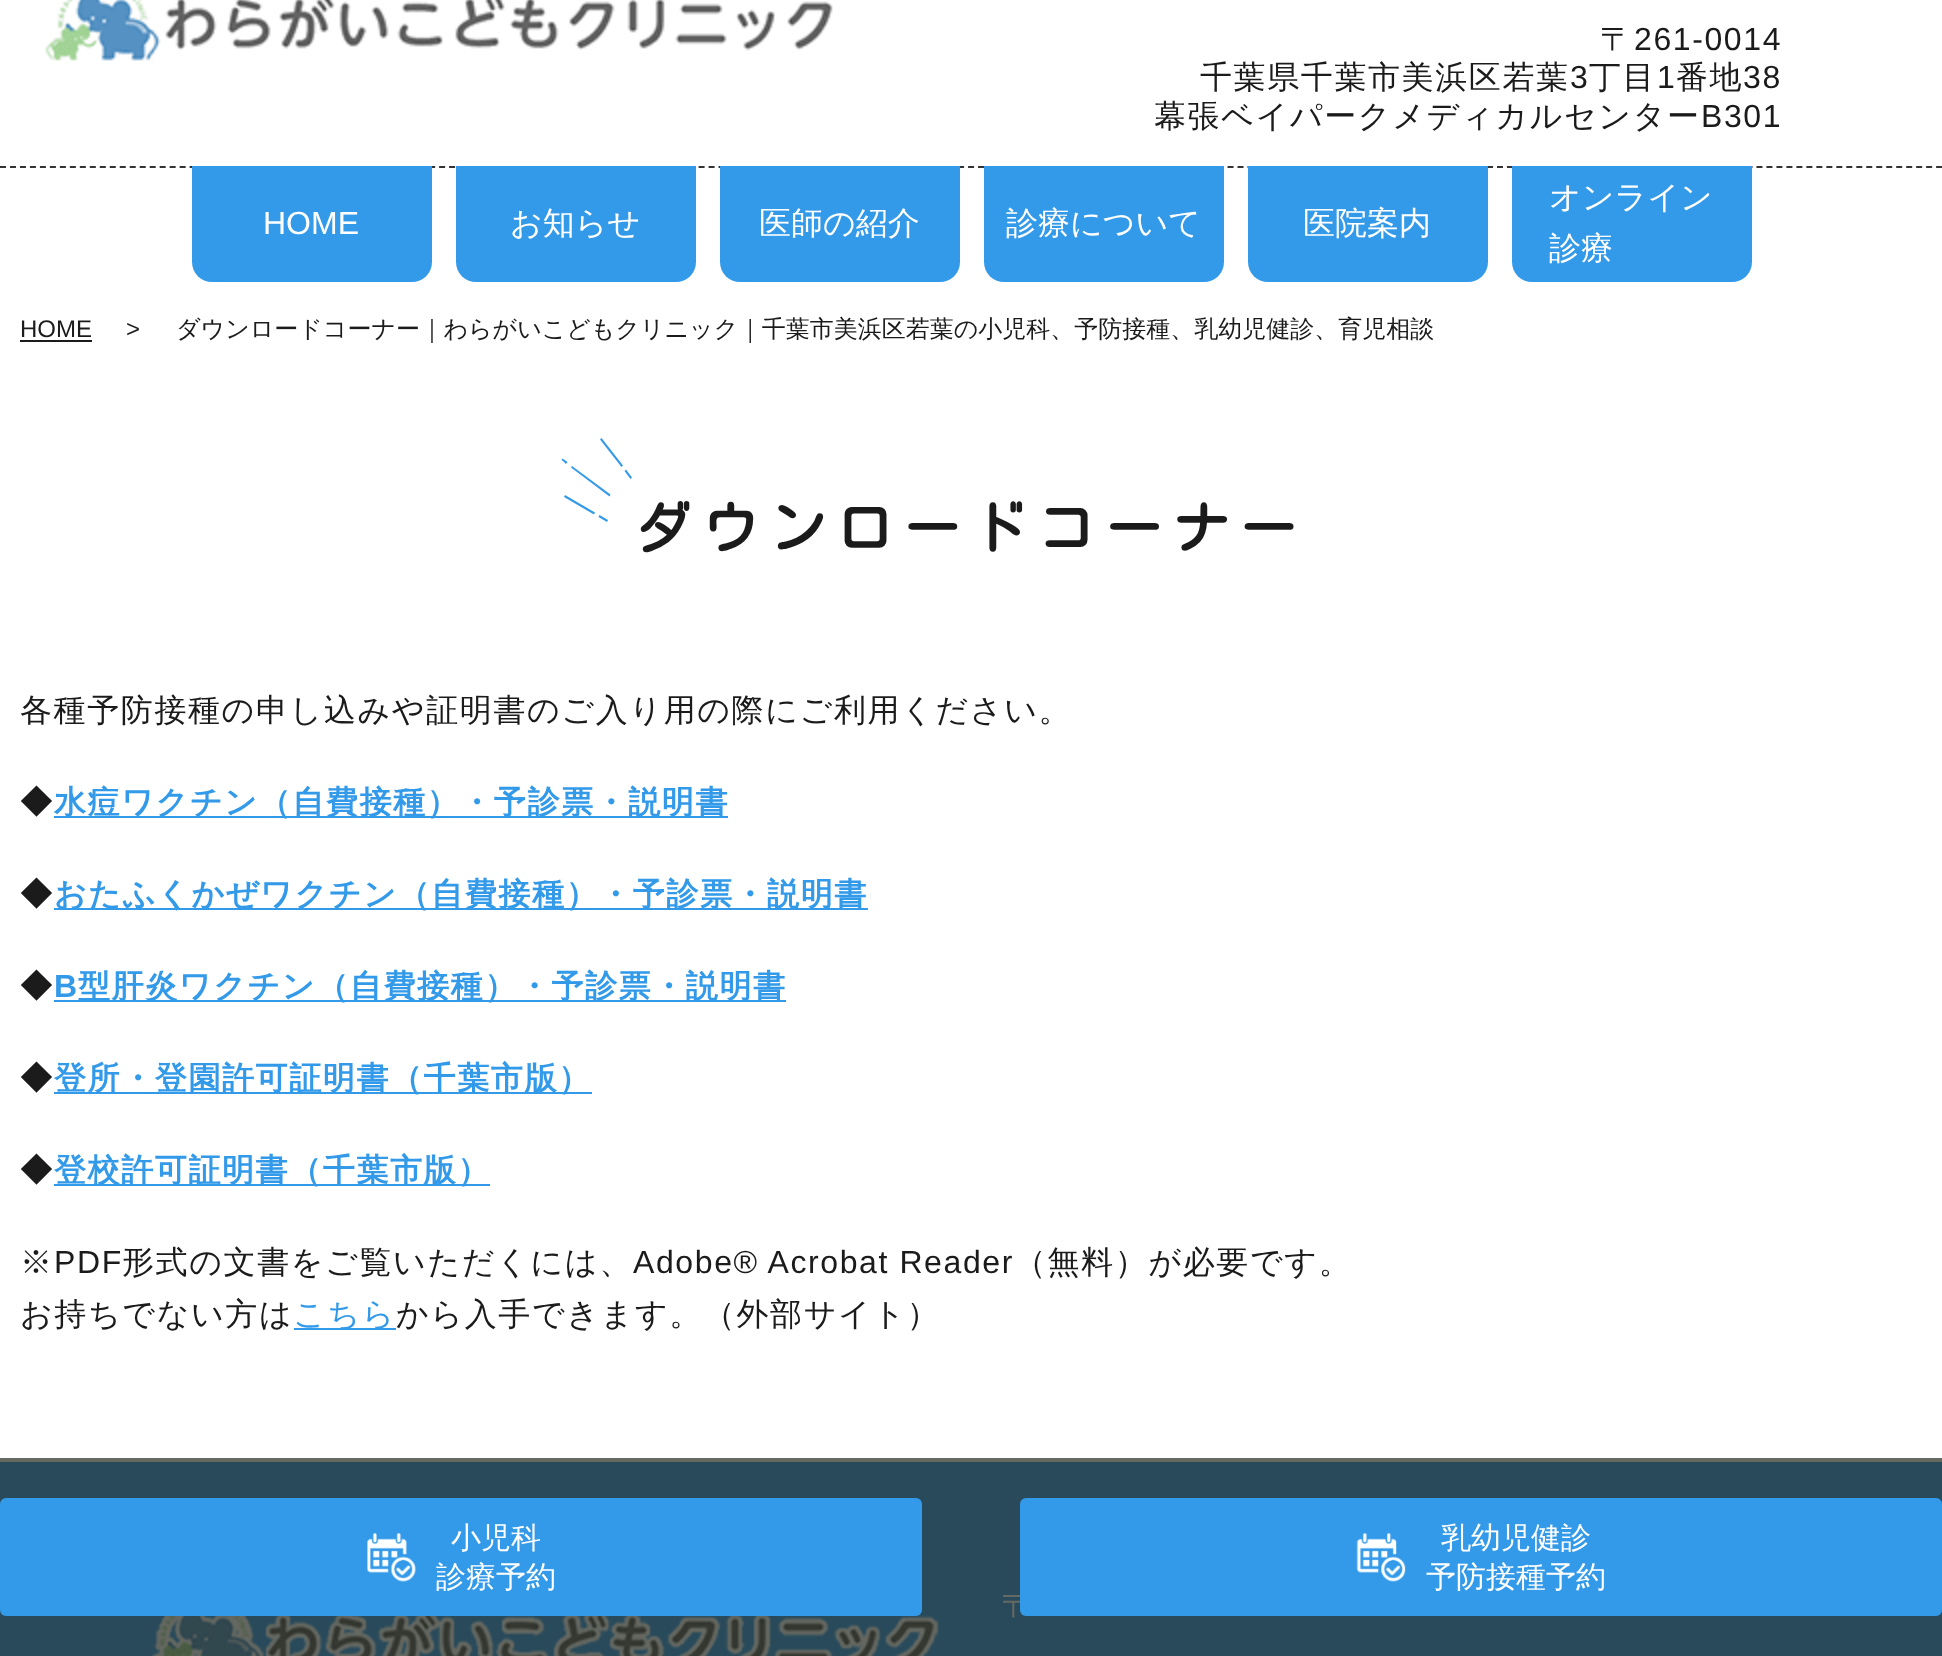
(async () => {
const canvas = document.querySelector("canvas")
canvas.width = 1942
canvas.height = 1656
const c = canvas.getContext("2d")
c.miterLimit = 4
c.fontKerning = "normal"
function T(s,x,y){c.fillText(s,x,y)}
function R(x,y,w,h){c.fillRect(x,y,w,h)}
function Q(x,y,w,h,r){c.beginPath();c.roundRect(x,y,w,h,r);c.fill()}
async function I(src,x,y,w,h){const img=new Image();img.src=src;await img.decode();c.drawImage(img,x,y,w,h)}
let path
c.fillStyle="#fff"
R(0,0,1942,1656)
c.fillStyle="#656962"
R(0,1458,1942,4)
path = new Path2D("M0 167h1942")
c.strokeStyle="#333"
c.lineWidth=2
c.setLineDash([6,3.98])
c.stroke(path)
await I("1.png",45,0,788,61)
c.letterSpacing="1.6px"
c.font="500 32px WenQuanYi Zen Hei"
c.fillStyle="#1b1b1b"
T("〒",1600,50)
c.font="32px Liberation Sans"
T("261-0014",1634,50)
c.font="500 32px WenQuanYi Zen Hei"
T("千葉県千葉市美浜区若葉",1200,88)
c.font="32px Liberation Sans"
T("3",1570,88)
c.font="500 32px WenQuanYi Zen Hei"
T("丁目",1589,88)
c.font="32px Liberation Sans"
T("1",1657,88)
c.font="500 32px WenQuanYi Zen Hei"
T("番地",1676,88)
c.font="32px Liberation Sans"
T("38",1743,88)
c.font="500 32px WenQuanYi Zen Hei"
T("幕張ベイパークメディカルセンター",1154,127)
c.font="32px Liberation Sans"
T("B301",1701,127)
c.fillStyle="#339ae9"
c.beginPath()
c.roundRect(192,166,240,116,[0,0,20,20])
c.fill()
c.letterSpacing="0px"
c.fillStyle="#fff"
T("HOME",263,234)
c.fillStyle="#339ae9"
c.beginPath()
c.roundRect(456,166,240,116,[0,0,20,20])
c.fill()
c.font="500 32px WenQuanYi Zen Hei"
c.fillStyle="#fff"
T("お知らせ",510,234)
c.fillStyle="#339ae9"
c.beginPath()
c.roundRect(720,166,240,116,[0,0,20,20])
c.fill()
c.fillStyle="#fff"
T("医師の紹介",759,234)
c.fillStyle="#339ae9"
c.beginPath()
c.roundRect(984,166,240,116,[0,0,20,20])
c.fill()
c.fillStyle="#fff"
T("診療について",1006,234)
c.fillStyle="#339ae9"
c.beginPath()
c.roundRect(1248,166,240,116,[0,0,20,20])
c.fill()
c.fillStyle="#fff"
T("医院案内",1303,234)
c.fillStyle="#339ae9"
c.beginPath()
c.roundRect(1512,166,240,116,[0,0,20,20])
c.fill()
c.fillStyle="#fff"
T("オンライン",1549,208)
T("診療",1549,259)
c.font="24px Liberation Sans"
c.fillStyle="#1b1b1b"
T("HOME",20,337)
R(20,340,72,2)
T(">",126,337)
c.font="500 24px WenQuanYi Zen Hei"
T("ダウンロードコーナー｜わらがいこどもクリニック｜千葉市美浜区若葉の小児科、予防接種、乳幼児健診、育児相談",176,337)
c.fillStyle="#339ae9"
path = new Path2D("M610 495.5l-.5 1l-38.5-29l1-1.5l38.5 28.5zm-46.5-34l-2-1.5l1-1.5l5 3.5l-1.5 2z")
c.fill(path)
path = new Path2D("M631 478.5l-.5 .5l-6-8l1.5-1.5l6 8zm-31-39l21.5 27.5l1.5-1.5l-21.5-27.5l-.5 .5z")
c.fill(path)
path = new Path2D("M607 522l-8.5-5l1-2l8.5 5zm-12-9.5l-1 2l-30-17.5l1-2z")
c.fill(path)
c.letterSpacing="11.25px"
c.font="bold 56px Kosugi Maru"
c.fillStyle="#1b1b1b"
T("ダウンロードコーナー",635,549)
c.letterSpacing="1.6px"
c.font="500 32px WenQuanYi Zen Hei"
T("各種予防接種の申し込みや証明書のご入り用の際にご利用ください。",20,721)
c.font="bold 32px WenQuanYi Zen Hei"
T("◆",20,813)
c.fillStyle="#339ae9"
R(54,816,674,2)
T("水痘ワクチン（自費接種）・予診票・説明書",54,813)
c.fillStyle="#1b1b1b"
T("◆",20,905)
c.fillStyle="#339ae9"
R(54,908,814,2)
T("おたふくかぜワクチン（自費接種）・予診票・説明書",54,905)
c.fillStyle="#1b1b1b"
T("◆",20,997)
c.font="bold 32px Liberation Sans"
c.fillStyle="#339ae9"
T("B",54,997)
R(54,1000,732,2)
c.font="bold 32px WenQuanYi Zen Hei"
T("型肝炎ワクチン（自費接種）・予診票・説明書",78,997)
c.fillStyle="#1b1b1b"
T("◆",20,1089)
c.fillStyle="#339ae9"
R(54,1092,538,2)
T("登所・登園許可証明書（千葉市版）",54,1089)
c.fillStyle="#1b1b1b"
T("◆",20,1181)
c.fillStyle="#339ae9"
R(54,1184,436,2)
T("登校許可証明書（千葉市版）",54,1181)
c.font="500 32px WenQuanYi Zen Hei"
c.fillStyle="#1b1b1b"
T("※",20,1273)
c.font="32px Liberation Sans"
T("PDF",54,1273)
c.font="500 32px WenQuanYi Zen Hei"
T("形式の文書をご覧いただくには、",122,1273)
c.font="32px Liberation Sans"
T("Adobe® Acrobat Reader",633,1273)
c.font="500 32px WenQuanYi Zen Hei"
T("（無料）が必要です。",1014,1273)
T("お持ちでない方は",20,1325)
c.fillStyle="#339ae9"
R(294,1328,102,2)
T("こちら",293,1325)
c.fillStyle="#1b1b1b"
T("から入手できます。（外部サイト）",396,1325)
c.fillStyle="#284a5b"
R(0,1462,1942,194)
await I("4.png",150,1615,789,41)
c.fillStyle="#339ae9"
Q(0,1498,922,118,6)
await I("2.png",367,1532,49,50)
c.letterSpacing="0px"
c.font="500 30px WenQuanYi Zen Hei"
c.fillStyle="#fff"
T("小児科",451,1548)
T("診療予約",436,1587)
c.letterSpacing="1.6px"
c.font="500 32px WenQuanYi Zen Hei"
c.fillStyle="#656962"
T("〒",1001,1617)
c.fillStyle="#339ae9"
Q(1020,1498,922,118,6)
await I("3.png",1356,1532,50,50)
c.letterSpacing="0px"
c.font="500 30px WenQuanYi Zen Hei"
c.fillStyle="#fff"
T("乳幼児健診",1441,1548)
T("予防接種予約",1426,1587)
})()
